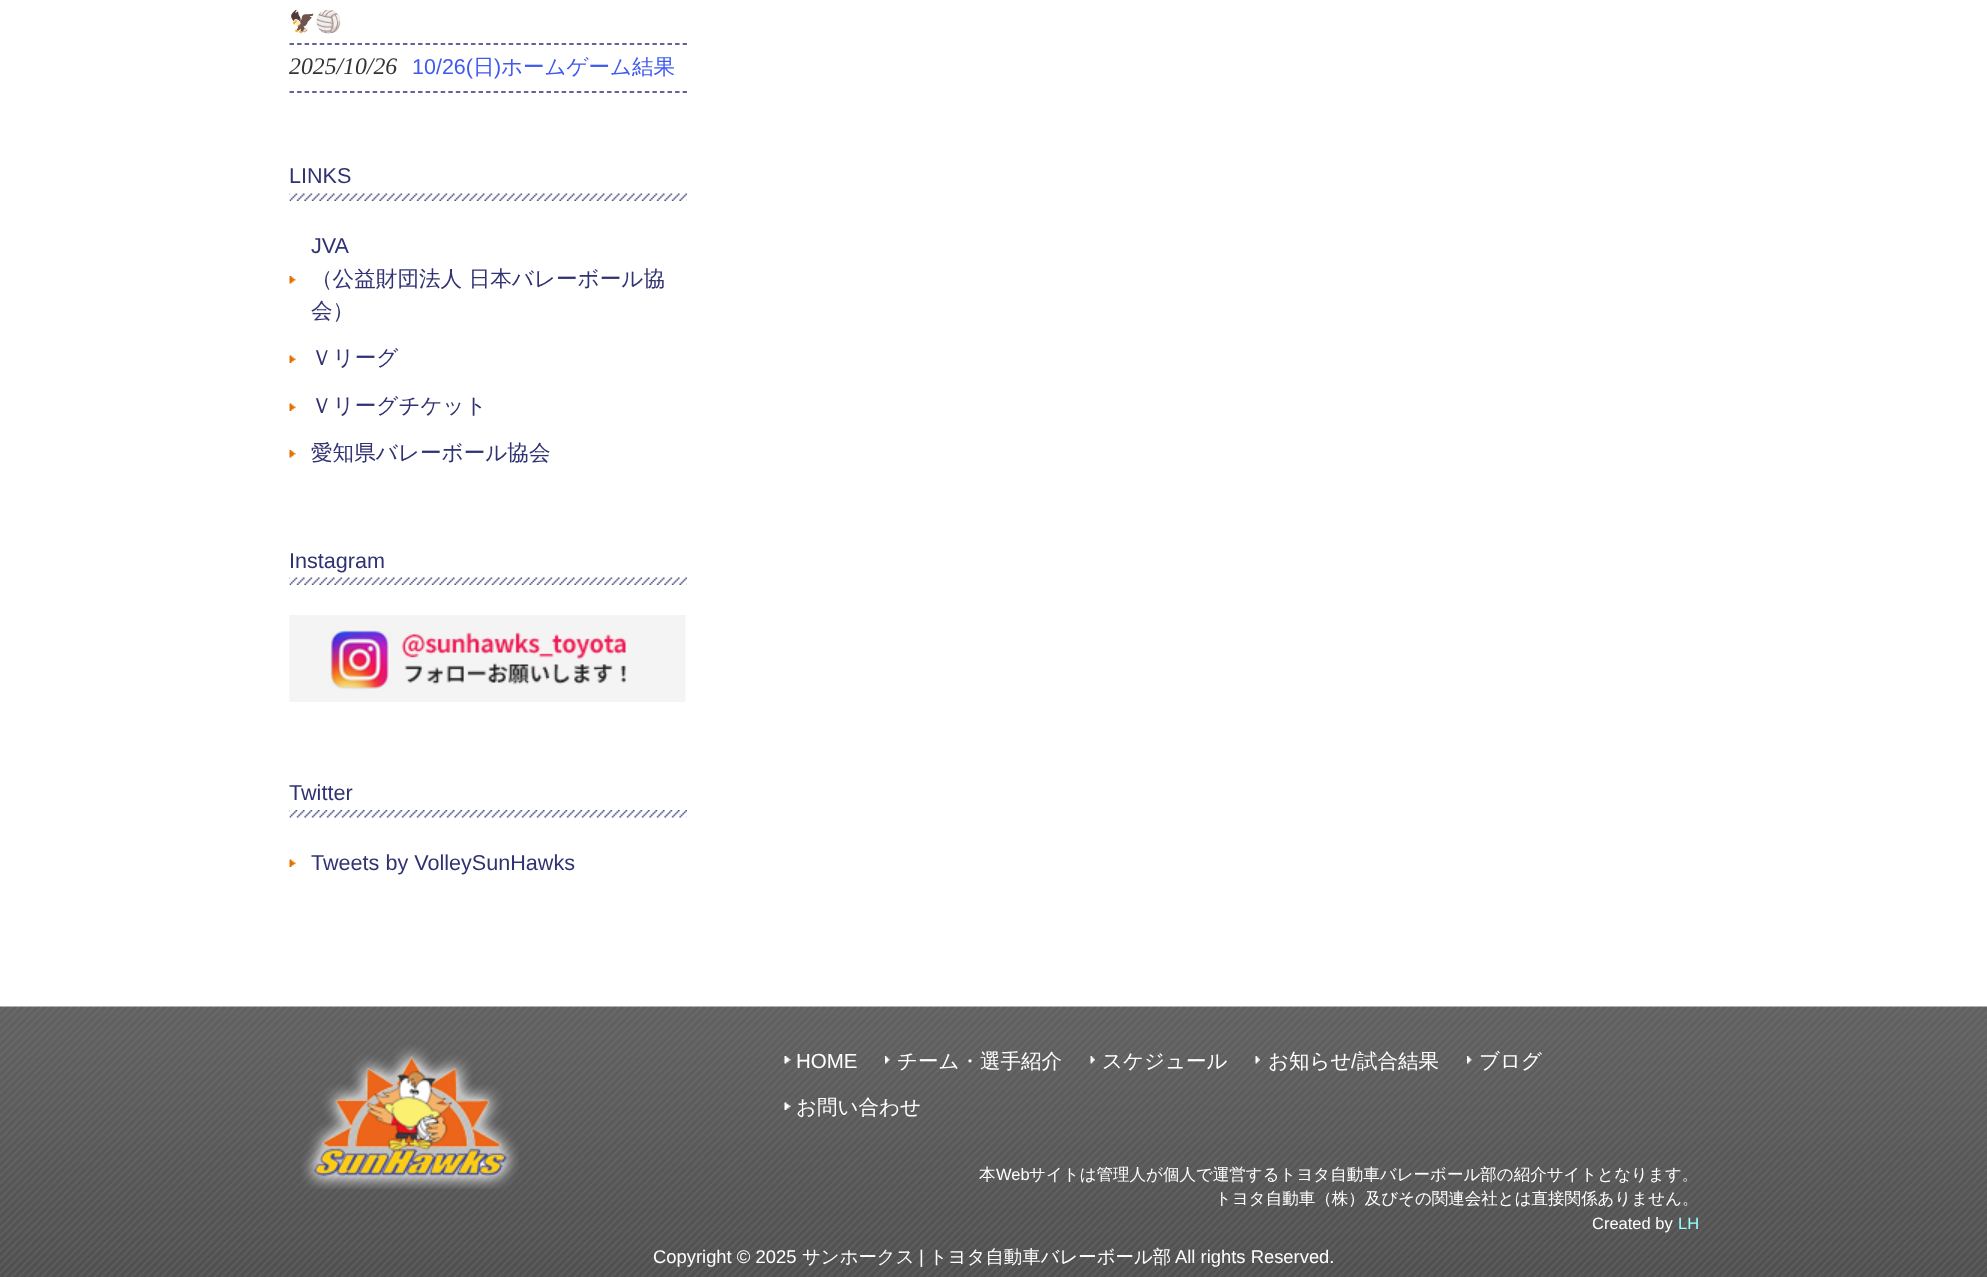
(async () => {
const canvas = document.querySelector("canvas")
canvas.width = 1987
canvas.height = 1277
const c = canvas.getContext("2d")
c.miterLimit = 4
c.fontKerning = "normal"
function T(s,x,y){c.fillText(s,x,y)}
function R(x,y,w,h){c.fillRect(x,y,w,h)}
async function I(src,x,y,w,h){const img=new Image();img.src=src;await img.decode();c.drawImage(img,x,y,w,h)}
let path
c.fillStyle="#fff"
R(0,0,1987,1277)
path = new Path2D("M289.5 44h397.5")
c.strokeStyle="#303272"
c.lineWidth=1.5
c.setLineDash([4.5,3.06])
c.stroke(path)
c.font="21.5px Noto Color Emoji"
c.fillStyle="#4059ee"
T("🦅🏐",289,29)
path = new Path2D("M289.5 92h397.5")
c.stroke(path)
c.font="italic 23.75px Liberation Serif"
c.fillStyle="#333"
T("2025/10/26",289,74)
c.font="21.5px Liberation Sans"
c.fillStyle="#4059ee"
T("10/26(",412,74)
c.font="500 21.5px WenQuanYi Zen Hei"
T("日",473,74)
c.font="21.5px Liberation Sans"
T(")",494,74)
c.font="500 21.5px WenQuanYi Zen Hei"
T("ホームゲーム結果",501,74)
await I("1.png",289,193,398,8)
c.font="21.6px Liberation Sans"
c.fillStyle="#303272"
T("LINKS",289,183)
await I("2.png",289,276,7,8)
T("JVA",311,253)
c.font="500 21.6px WenQuanYi Zen Hei"
T("（公益財団法人 日本バレーボール協",311,286)
T("会）",311,318)
await I("3.png",289,355,7,8)
T("Ｖリーグ",311,365)
await I("3.png",289,403,7,8)
T("Ｖリーグチケット",311,413)
await I("2.png",289,450,7,8)
T("愛知県バレーボール協会",311,460)
await I("4.png",289,577,398,8)
c.font="21.6px Liberation Sans"
T("Instagram",289,568)
await I("5.png",289,615,397,87)
await I("6.png",289,810,398,8)
T("Twitter",289,800)
await I("3.png",289,859,7,8)
T("Tweets by VolleySunHawks",311,870)
await I("7.png",0,1006,1987,271)
await I("8.png",301,1045,218,144)
await I("9.png",784,1056,7,8)
c.font="20.5px Liberation Sans"
c.fillStyle="#fff"
T("HOME",796,1068)
await I("10.png",885,1056,5,8)
c.font="500 20.5px WenQuanYi Zen Hei"
T("チーム・選手紹介",897,1068)
await I("11.png",1090,1056,5,8)
T("スケジュール",1102,1068)
await I("11.png",1255,1056,5,8)
T("お知らせ",1268,1068)
c.font="20.5px Liberation Sans"
T("/",1351,1068)
c.font="500 20.5px WenQuanYi Zen Hei"
T("試合結果",1357,1068)
await I("12.png",1467,1056,5,8)
T("ブログ",1479,1068)
await I("13.png",784,1102,7,8)
T("お問い合わせ",796,1114)
c.font="500 16.5px WenQuanYi Zen Hei"
T("本",979,1180)
c.font="16.5px Liberation Sans"
T("Web",996,1180)
c.font="500 16.5px WenQuanYi Zen Hei"
T("サイトは管理人が個人で運営するトヨタ自動車バレーボール部の紹介サイトとなります。",1029,1180)
T("トヨタ自動車（株）及びその関連会社とは直接関係ありません。",1215,1204)
c.font="16.5px Liberation Sans"
T("Created by",1592,1229)
c.fillStyle="#9ff"
T("LH",1678,1229)
c.font="18.4px Liberation Sans"
c.fillStyle="#fff"
T("Copyright © 2025",653,1263)
c.font="500 18.4px WenQuanYi Zen Hei"
T("サンホークス",802,1263)
c.font="18.4px Liberation Sans"
T("|",919,1263)
c.font="500 18.4px WenQuanYi Zen Hei"
T("トヨタ自動車バレーボール部",929,1263)
c.font="18.4px Liberation Sans"
T("All rights Reserved.",1175,1263)
})()
